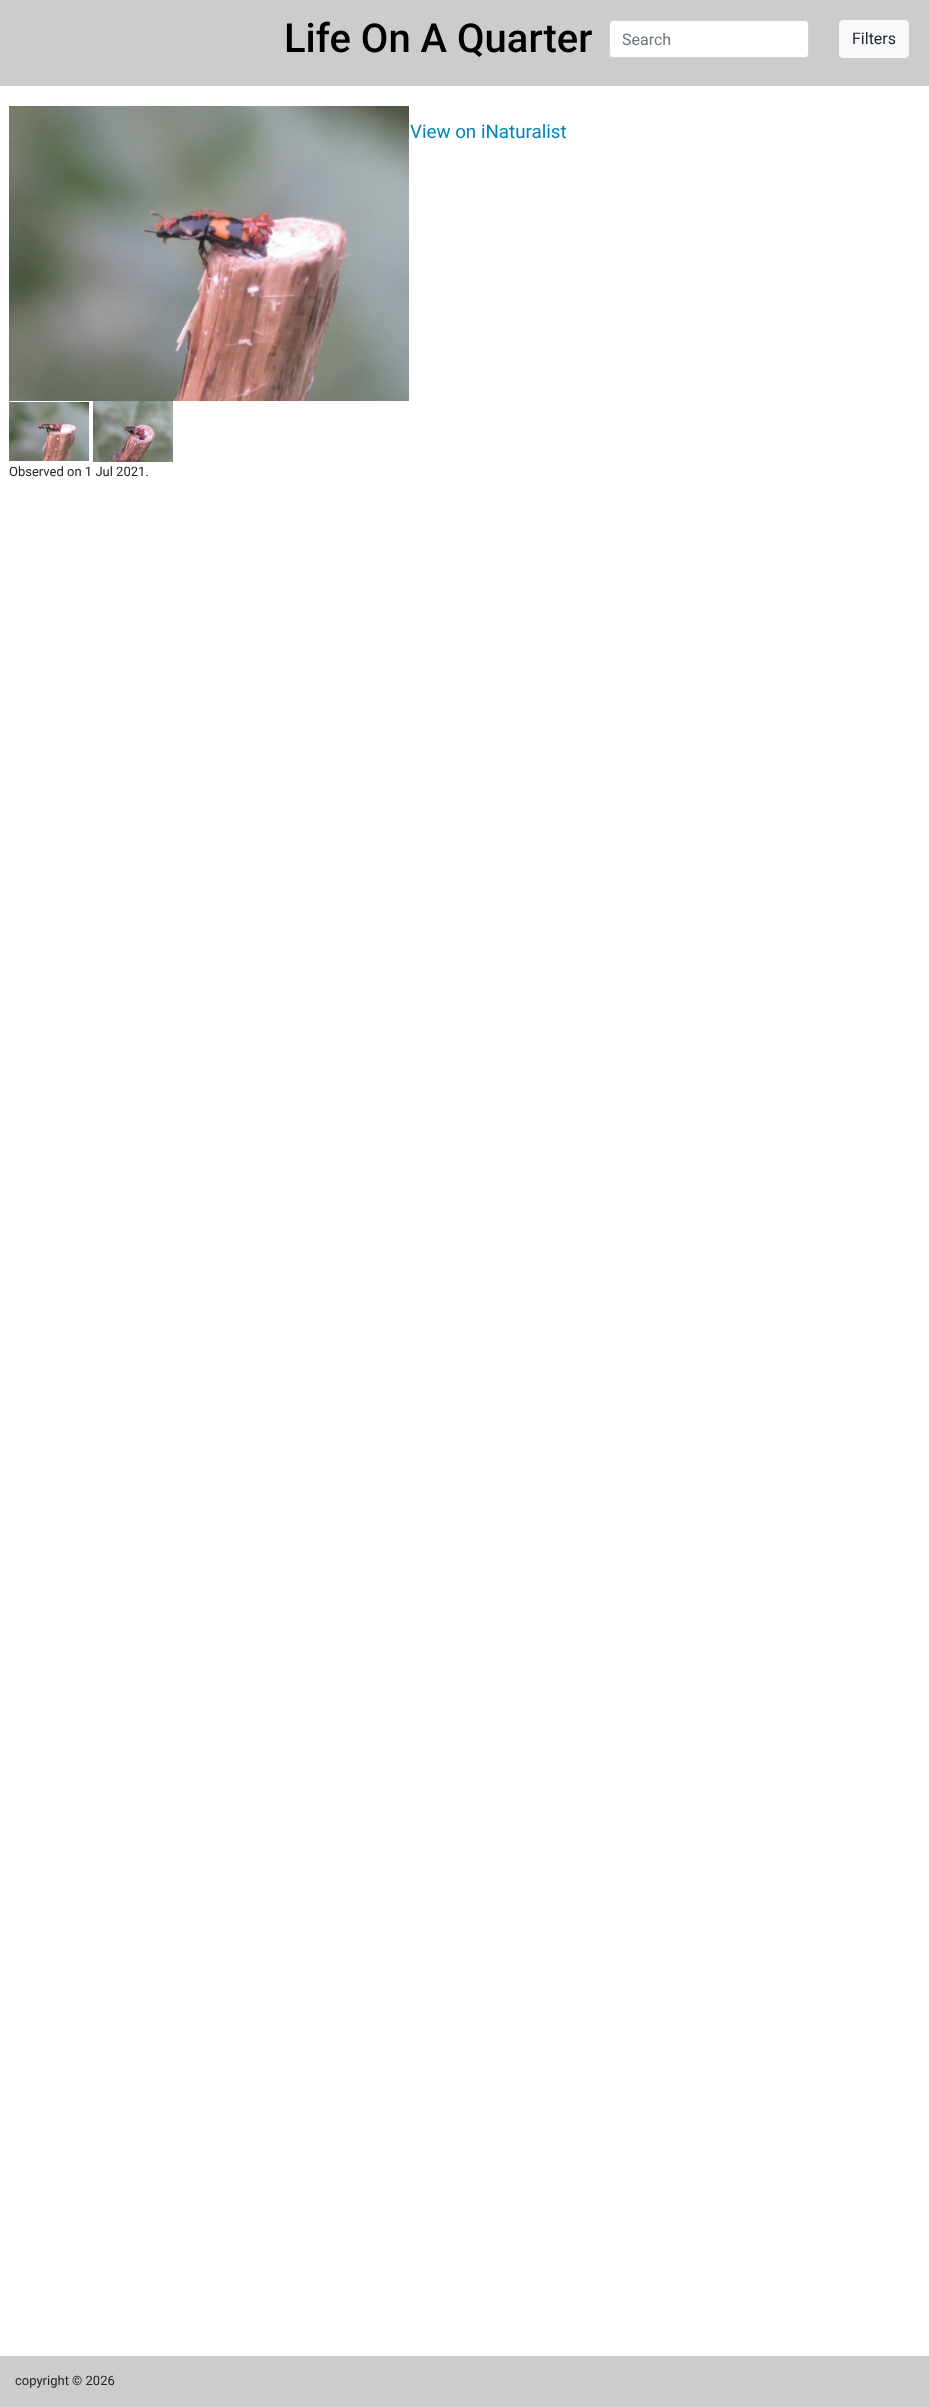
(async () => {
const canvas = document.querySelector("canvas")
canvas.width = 929
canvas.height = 2407
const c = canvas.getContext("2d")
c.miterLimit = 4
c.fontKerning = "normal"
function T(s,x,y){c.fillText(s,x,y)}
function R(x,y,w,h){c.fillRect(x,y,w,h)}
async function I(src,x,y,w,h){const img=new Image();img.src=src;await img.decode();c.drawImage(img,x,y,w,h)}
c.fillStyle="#fff"
R(0,0,929,2407)
c.fillStyle="#ccc"
R(0,0,929,86)
c.font="500 40px Roboto"
c.fillStyle="#000"
T("Life On A Quarter",284,52)
c.fillStyle="#fff"
c.beginPath()
c.roundRect(609.5,20.5,199,37,3.5)
c.fill()
c.strokeStyle="#ced4da"
c.stroke()
c.font="16px Roboto"
c.fillStyle="#6c757d"
T("Search",622,45)
c.fillStyle="#f8f9fa"
c.beginPath()
c.roundRect(839.5,20.5,69,37,3.5)
c.fill()
c.strokeStyle="#f8f9fa"
c.stroke()
c.fillStyle="#212529"
T("Filters",852,44)
await I("1.png",9,106,400,295)
c.font="18.75px Roboto"
c.fillStyle="#0085bd"
T("View on iNaturalist",410,138)
await I("2.png",9,402,80,59)
await I("3.png",93,401,80,61)
c.font="13px Roboto"
c.fillStyle="#212529"
T("Observed on 1 Jul 2021.",9,476)
c.fillStyle="#ccc"
R(0,2356,929,51)
c.fillStyle="#212529"
T("copyright © 2026",15,2385)
})()
